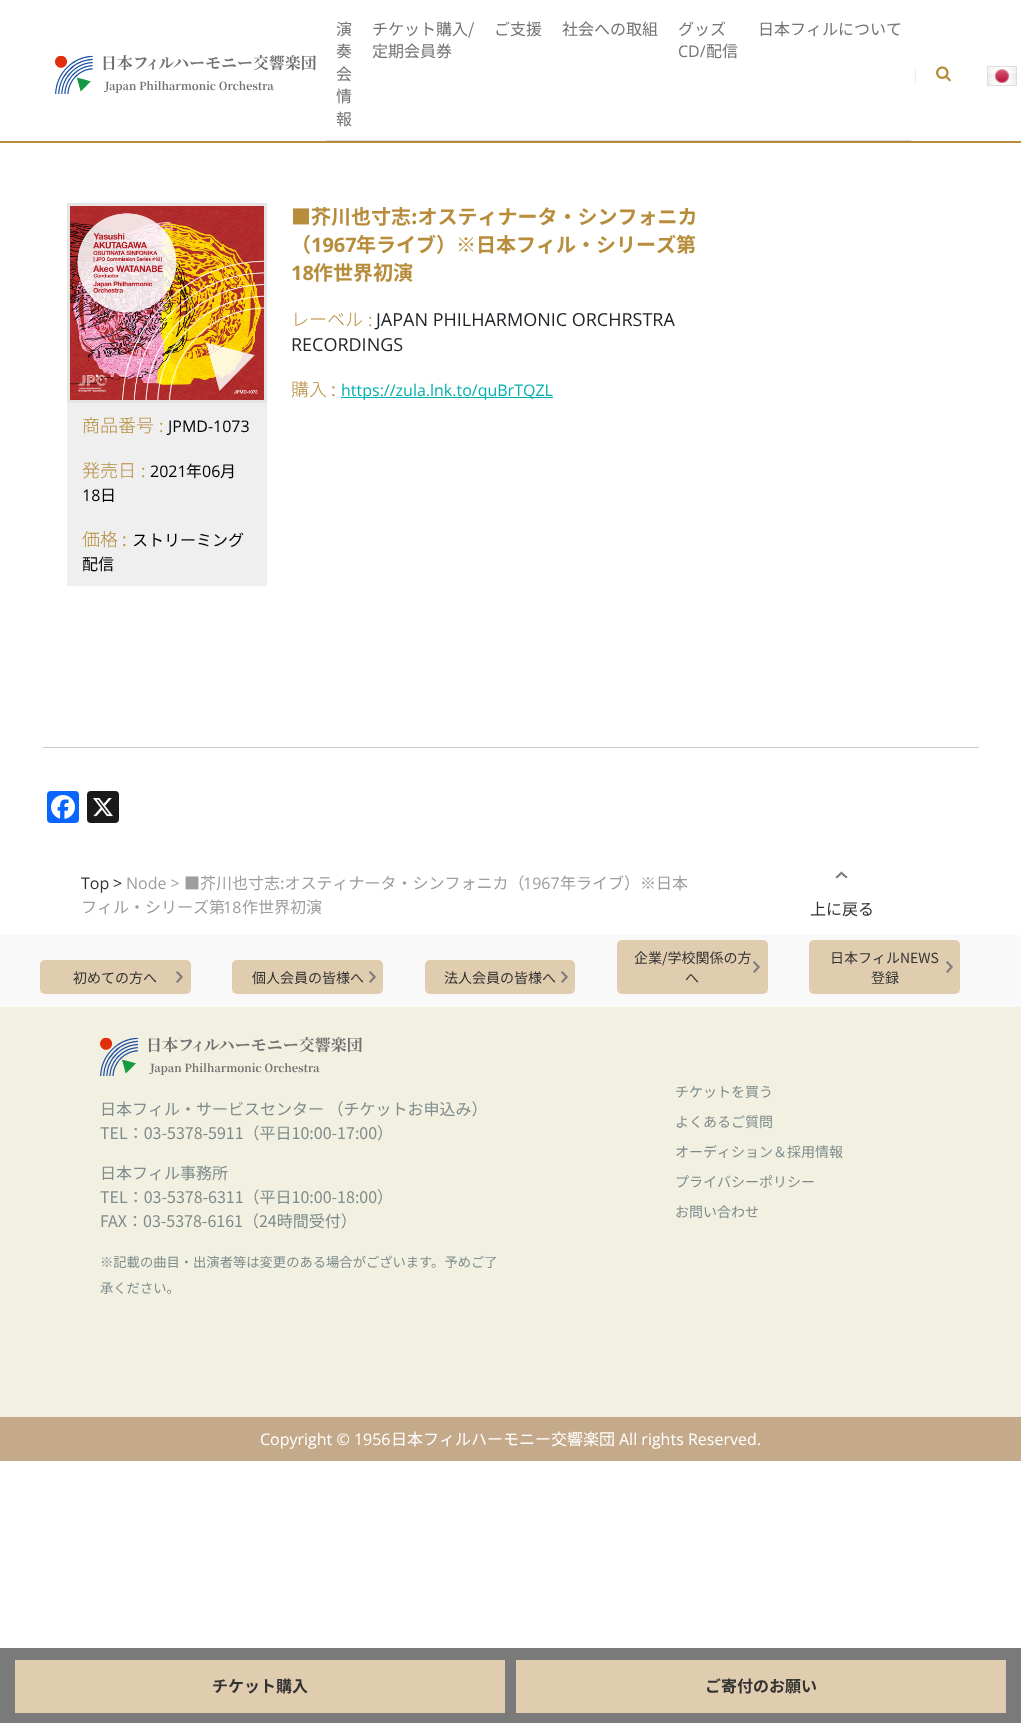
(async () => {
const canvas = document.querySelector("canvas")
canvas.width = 1021
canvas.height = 1723
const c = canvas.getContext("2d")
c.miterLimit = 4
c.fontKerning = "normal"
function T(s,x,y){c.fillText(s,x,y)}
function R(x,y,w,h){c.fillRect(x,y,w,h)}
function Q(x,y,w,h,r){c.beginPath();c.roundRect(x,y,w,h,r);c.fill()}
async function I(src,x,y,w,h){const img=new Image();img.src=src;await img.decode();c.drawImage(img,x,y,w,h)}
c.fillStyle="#fff"
R(0,0,1021,1723)
c.fillStyle="#b78c3b"
R(0,141,1021,2)
await I("1.png",55,55,261,39)
c.fillStyle="#d9d9d9"
R(326,140,585,1)
c.font="16px Noto Sans JP"
c.fillStyle="#737373"
T("演",336,35)
T("奏",336,57)
T("会",336,80)
T("情",336,102)
T("報",336,125)
T("チケット購入/",372,35)
T("定期会員券",372,57)
T("ご支援",494,35)
T("社会への取組",562,35)
T("グッズ",678,35)
c.font="16px Open Sans"
T("CD/",678,57)
c.font="16px Noto Sans JP"
T("配信",706,57)
T("日本フィルについて",758,35)
c.font="16px Open Sans"
c.fillStyle="#eee"
T("|",911,80)
await I("2.png",936,66,15,16)
await I("3.png",987,66,30,20)
c.font="bold 20px Noto Sans JP"
c.fillStyle="#b78c3b"
T("■芥川也寸志:オスティナータ・シンフォニカ",291,224)
T("（",291,252)
c.font="bold 20px Open Sans"
T("1967",311,252)
c.font="bold 20px Noto Sans JP"
T("年ライブ）※日本フィル・シリーズ第",356,252)
c.font="bold 20px Open Sans"
T("18",291,280)
c.font="bold 20px Noto Sans JP"
T("作世界初演",313,280)
c.wordSpacing="1px"
c.font="300 18px Noto Sans JP"
T("レーベル :",291,326)
c.wordSpacing="0px"
c.font="18px Open Sans"
c.fillStyle="#212529"
T("JAPAN PHILHARMONIC ORCHRSTRA",376,326)
T("RECORDINGS",291,351)
c.font="300 18px Noto Sans JP"
c.fillStyle="#b78c3b"
T("購入",291,396)
c.font="18px Open Sans"
T(":",331,396)
c.fillStyle="#03afaf"
R(341,397,212,1)
c.font="16px Open Sans"
T("https://zula.lnk.to/quBrTQZL",341,396)
c.strokeStyle="#e5e5e5"
c.lineWidth=3
c.strokeRect(68.5,204.5,197,197)
await I("4.png",70,206,194,194)
c.fillStyle="#efefef"
R(67,403,200,183)
c.wordSpacing="1px"
c.font="300 18px Noto Sans JP"
c.fillStyle="#b78c3b"
T("商品番号 :",82,432)
c.wordSpacing="0px"
c.font="16px Open Sans"
c.fillStyle="#000"
T("JPMD-1073",168,432)
c.wordSpacing="1px"
c.font="300 18px Noto Sans JP"
c.fillStyle="#b78c3b"
T("発売日 :",82,477)
c.wordSpacing="0px"
c.font="16px Open Sans"
c.fillStyle="#000"
T("2021",150,477)
c.font="16px Noto Sans JP"
T("年",186,477)
c.font="16px Open Sans"
T("06",202,477)
c.font="16px Noto Sans JP"
T("月",220,477)
c.font="16px Open Sans"
T("18",82,501)
c.font="16px Noto Sans JP"
T("日",100,501)
c.font="300 18px Noto Sans JP"
c.fillStyle="#b78c3b"
T("価格",82,546)
c.font="18px Open Sans"
T(":",122,546)
c.font="16px Noto Sans JP"
c.fillStyle="#000"
T("ストリーミング",132,546)
T("配信",82,570)
c.fillStyle="#c8c9ca"
R(43,747,936,1)
c.fillStyle="#0866ff"
Q(47,791,32,32,4)
await I("5.png",51,795,24,24)
c.fillStyle="#1a1a1a"
Q(87,791,32,32,4)
await I("6.png",93,798,20,19)
c.font="16px Open Sans"
c.fillStyle="#333"
T("Top",81,889)
c.fillStyle="#212529"
T(">",113,889)
c.fillStyle="#9d9d9d"
T("Node >",126,889)
c.font="16px Noto Sans JP"
T("■芥川也寸志:オスティナータ・シンフォニカ（",184,889)
c.font="16px Open Sans"
T("1967",523,889)
c.font="16px Noto Sans JP"
T("年ライブ）※日本",560,889)
T("フィル・シリーズ第",81,913)
c.font="16px Open Sans"
T("18",223,913)
c.font="16px Noto Sans JP"
T("作世界初演",242,913)
await I("7.png",835,871,13,8)
c.fillStyle="#333"
T("上に戻る",810,915)
c.fillStyle="#f9f9f9"
R(0,935,1021,72)
c.fillStyle="#e0cdaf"
Q(40,960,151,34,5)
await I("8.png",176,971,7,12)
c.font="14px Noto Sans JP"
c.fillStyle="#333"
T("初めての方へ",73,983)
c.fillStyle="#e0cdaf"
Q(232,960,151,34,5)
await I("9.png",369,971,7,12)
c.fillStyle="#333"
T("個人会員の皆様へ",252,983)
c.fillStyle="#e0cdaf"
Q(425,960,150,34,5)
await I("8.png",561,971,7,12)
c.fillStyle="#333"
T("法人会員の皆様へ",444,983)
c.fillStyle="#e0cdaf"
Q(617,940,151,54,5)
await I("9.png",753,961,7,12)
c.fillStyle="#333"
T("企業/学校関係の方",634,963)
T("へ",685,983)
c.fillStyle="#e0cdaf"
Q(809,940,151,54,5)
await I("9.png",946,961,7,12)
c.fillStyle="#333"
T("日本フィルNEWS",830,963)
T("登録",871,983)
c.fillStyle="#7a7a7a"
R(0,1648,1021,75)
c.fillStyle="#e0cdaf"
R(15,1660,490,53)
c.font="bold 16px Noto Sans JP"
c.fillStyle="#333"
T("チケット購入",212,1692)
c.fillStyle="#e0cdaf"
R(516,1660,490,53)
c.fillStyle="#333"
T("ご寄付のお願い",705,1692)
c.fillStyle="#f2f0e1"
R(0,1007,1021,410)
await I("10.png",100,1037,262,39)
c.font="16px Noto Sans JP"
c.fillStyle="#7f8c8d"
T("日本フィル・サービスセンター （チケットお申込み）",100,1115)
T("TEL：03-5378-5911（平日10:00-17:00）",100,1139)
T("日本フィル事務所",100,1179)
T("TEL：03-5378-6311（平日10:00-18:00）",100,1203)
T("FAX：03-5378-6161（24時間受付）",100,1227)
c.font="13.3px Noto Sans JP"
T("※記載の曲目・出演者等は変更のある場合がございます。予めご了",100,1267)
T("承ください。",100,1293)
c.font="14px Noto Sans JP"
T("チケットを買う",675,1097)
T("よくあるご質問",675,1127)
T("オーディション＆採用情報",675,1157)
T("プライバシーポリシー",675,1187)
T("お問い合わせ",675,1217)
c.fillStyle="#c4aa8a"
R(0,1417,1021,44)
c.font="16px Open Sans"
c.fillStyle="#fff"
T("Copyright © 1956",260,1445)
c.font="16px Noto Sans JP"
T("日本フィルハーモニー交響楽団",391,1445)
c.font="16px Open Sans"
T("All rights Reserved.",619,1445)
})()
